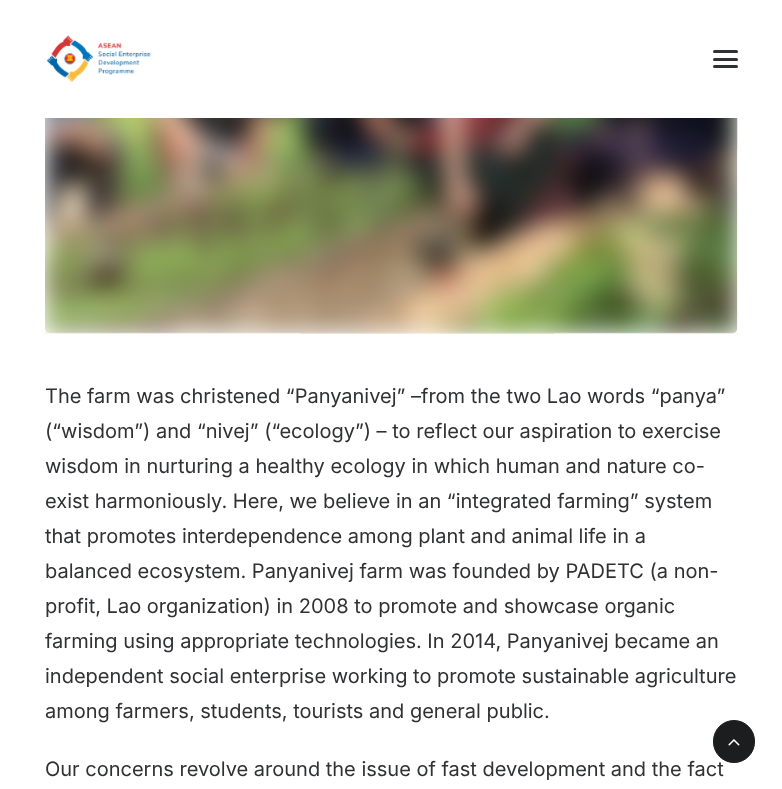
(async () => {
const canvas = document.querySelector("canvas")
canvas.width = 782
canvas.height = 789
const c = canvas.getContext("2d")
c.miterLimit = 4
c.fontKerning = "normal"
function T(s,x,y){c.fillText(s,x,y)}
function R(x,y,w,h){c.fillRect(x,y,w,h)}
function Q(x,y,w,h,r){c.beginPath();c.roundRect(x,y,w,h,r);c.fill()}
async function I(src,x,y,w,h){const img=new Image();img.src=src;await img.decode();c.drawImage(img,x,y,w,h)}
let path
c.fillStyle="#fff"
R(0,0,782,789)
c.save()
c.beginPath()
c.rect(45,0,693,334)
c.clip()
path = new Path2D("M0 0h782v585h-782zm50-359h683c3 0 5 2 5 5v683c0 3-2 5-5 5h-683c-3 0-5-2-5-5v-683c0-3 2-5 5-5z")
c.clip(path,"evenodd")
c.fillStyle="#0000001a"
c.filter="blur(62.5px)"
c.beginPath()
c.roundRect(45,-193,693,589,5)
c.fill()
c.filter="none"
c.restore()
R(737,0,1,118)
await I("1.png",46,35,105,48)
c.fillStyle="#303133"
Q(713,58,25,3,1.5)
Q(713,50,25,3,1.5)
Q(713,65,25,3,1.5)
await I("2.png",45,118,693,216)
c.font="20px Inter"
T("The farm was christened “Panyanivej” –from the two Lao words “panya”",45,403)
T("(“wisdom”) and “nivej” (“ecology”) – to reflect our aspiration to exercise",45,438)
T("wisdom in nurturing a healthy ecology in which human and nature co-",45,473)
T("exist harmoniously. Here, we believe in an “integrated farming” system",45,508)
T("that promotes interdependence among plant and animal life in a",45,543)
T("balanced ecosystem. Panyanivej farm was founded by PADETC (a non-",45,578)
T("profit, Lao organization) in 2008 to promote and showcase organic",45,613)
T("farming using appropriate technologies. In 2014, Panyanivej became an",45,648)
T("independent social enterprise working to promote sustainable agriculture",45,683)
T("among farmers, students, tourists and general public.",45,718)
T("Our concerns revolve around the issue of fast development and the fact",45,776)
c.fillStyle="#1b1d1f"
c.beginPath()
c.roundRect(713.5,720.5,41,42,20.5)
c.fill()
c.strokeStyle="#1b1d1f"
c.stroke()
await I("3.png",728,739,12,7)
})()
